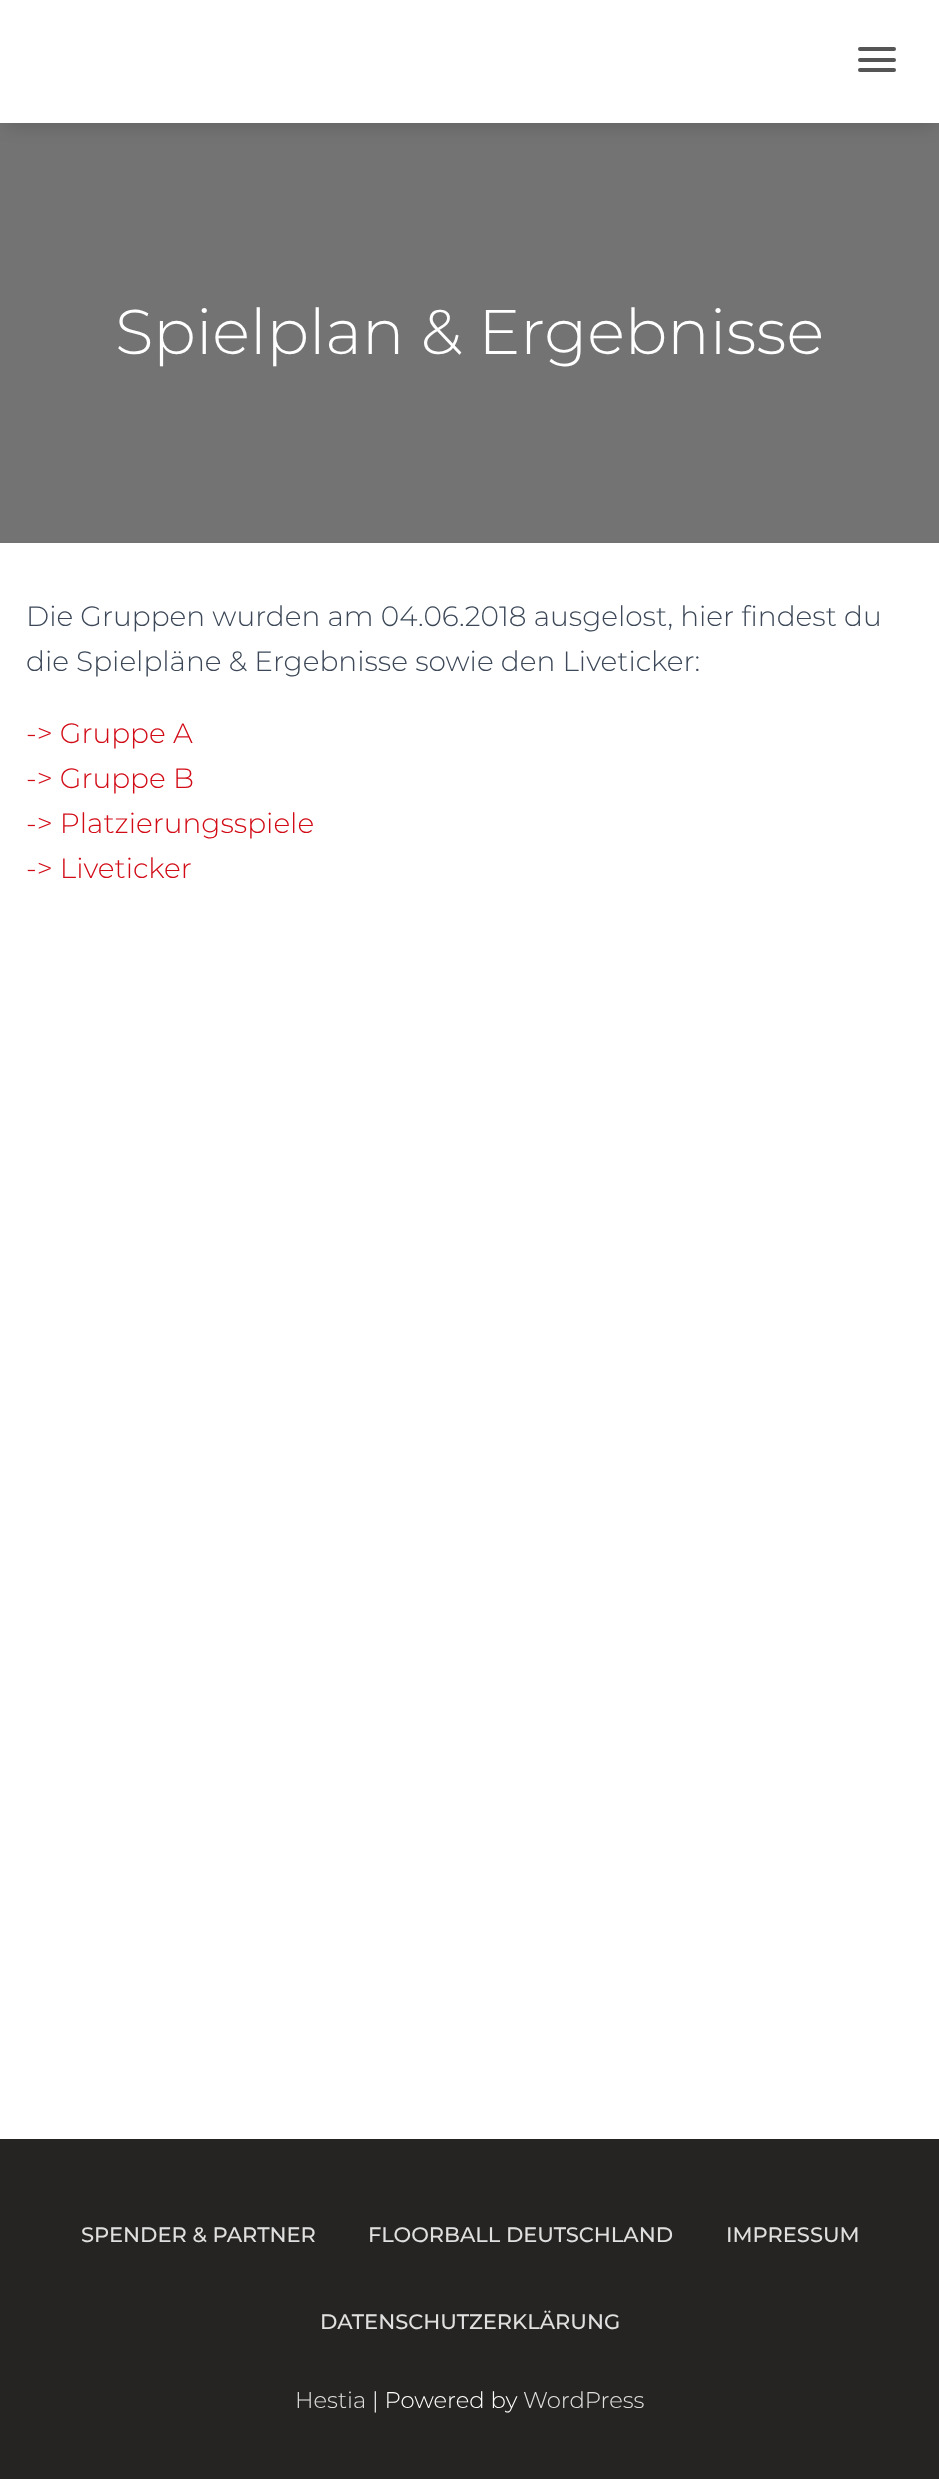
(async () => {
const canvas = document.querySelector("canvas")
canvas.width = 939
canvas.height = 2479
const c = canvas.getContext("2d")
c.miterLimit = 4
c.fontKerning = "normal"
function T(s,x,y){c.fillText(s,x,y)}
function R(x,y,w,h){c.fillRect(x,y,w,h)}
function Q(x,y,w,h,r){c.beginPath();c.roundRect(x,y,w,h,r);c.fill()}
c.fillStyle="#737373"
R(0,0,939,2479)
c.fillStyle="#00000026"
c.filter="blur(9px)"
c.beginPath()
c.rect(7,18,926,108)
c.fill()
c.filter="none"
c.fillStyle="#fff"
R(0,0,939,123)
c.fillStyle="#555"
Q(858,47,38,4,2)
Q(858,58,38,4,2)
Q(858,68,38,4,2)
c.font="300 63px Montserrat"
c.fillStyle="#fff"
T("Spielplan & Ergebnisse",115,354)
R(0,543,939,1596)
c.font="300 28px Montserrat"
c.fillStyle="#3c4858"
T("Die Gruppen wurden am 04.06.2018 ausgelost, hier findest du",26,626)
T("die Spielpläne & Ergebnisse sowie den Liveticker:",26,671)
c.fillStyle="#d20c17"
T("-> Gruppe A",26,743)
T("-> Gruppe B",26,788)
T("-> Platzierungsspiele",26,833)
T("-> Liveticker",26,878)
c.fillStyle="#252422"
R(0,2139,939,340)
c.font="500 21px Montserrat"
c.fillStyle="#e0e0e0"
T("SPENDER & PARTNER",81,2242)
T("FLOORBALL DEUTSCHLAND",368,2242)
T("IMPRESSUM",726,2242)
T("DATENSCHUTZERKLÄRUNG",320,2329)
c.font="300 22.75px Montserrat"
T("Hestia",295,2408)
c.fillStyle="#fff"
T("| Powered by",372,2408)
c.fillStyle="#e0e0e0"
T("WordPress",523,2408)
})()
